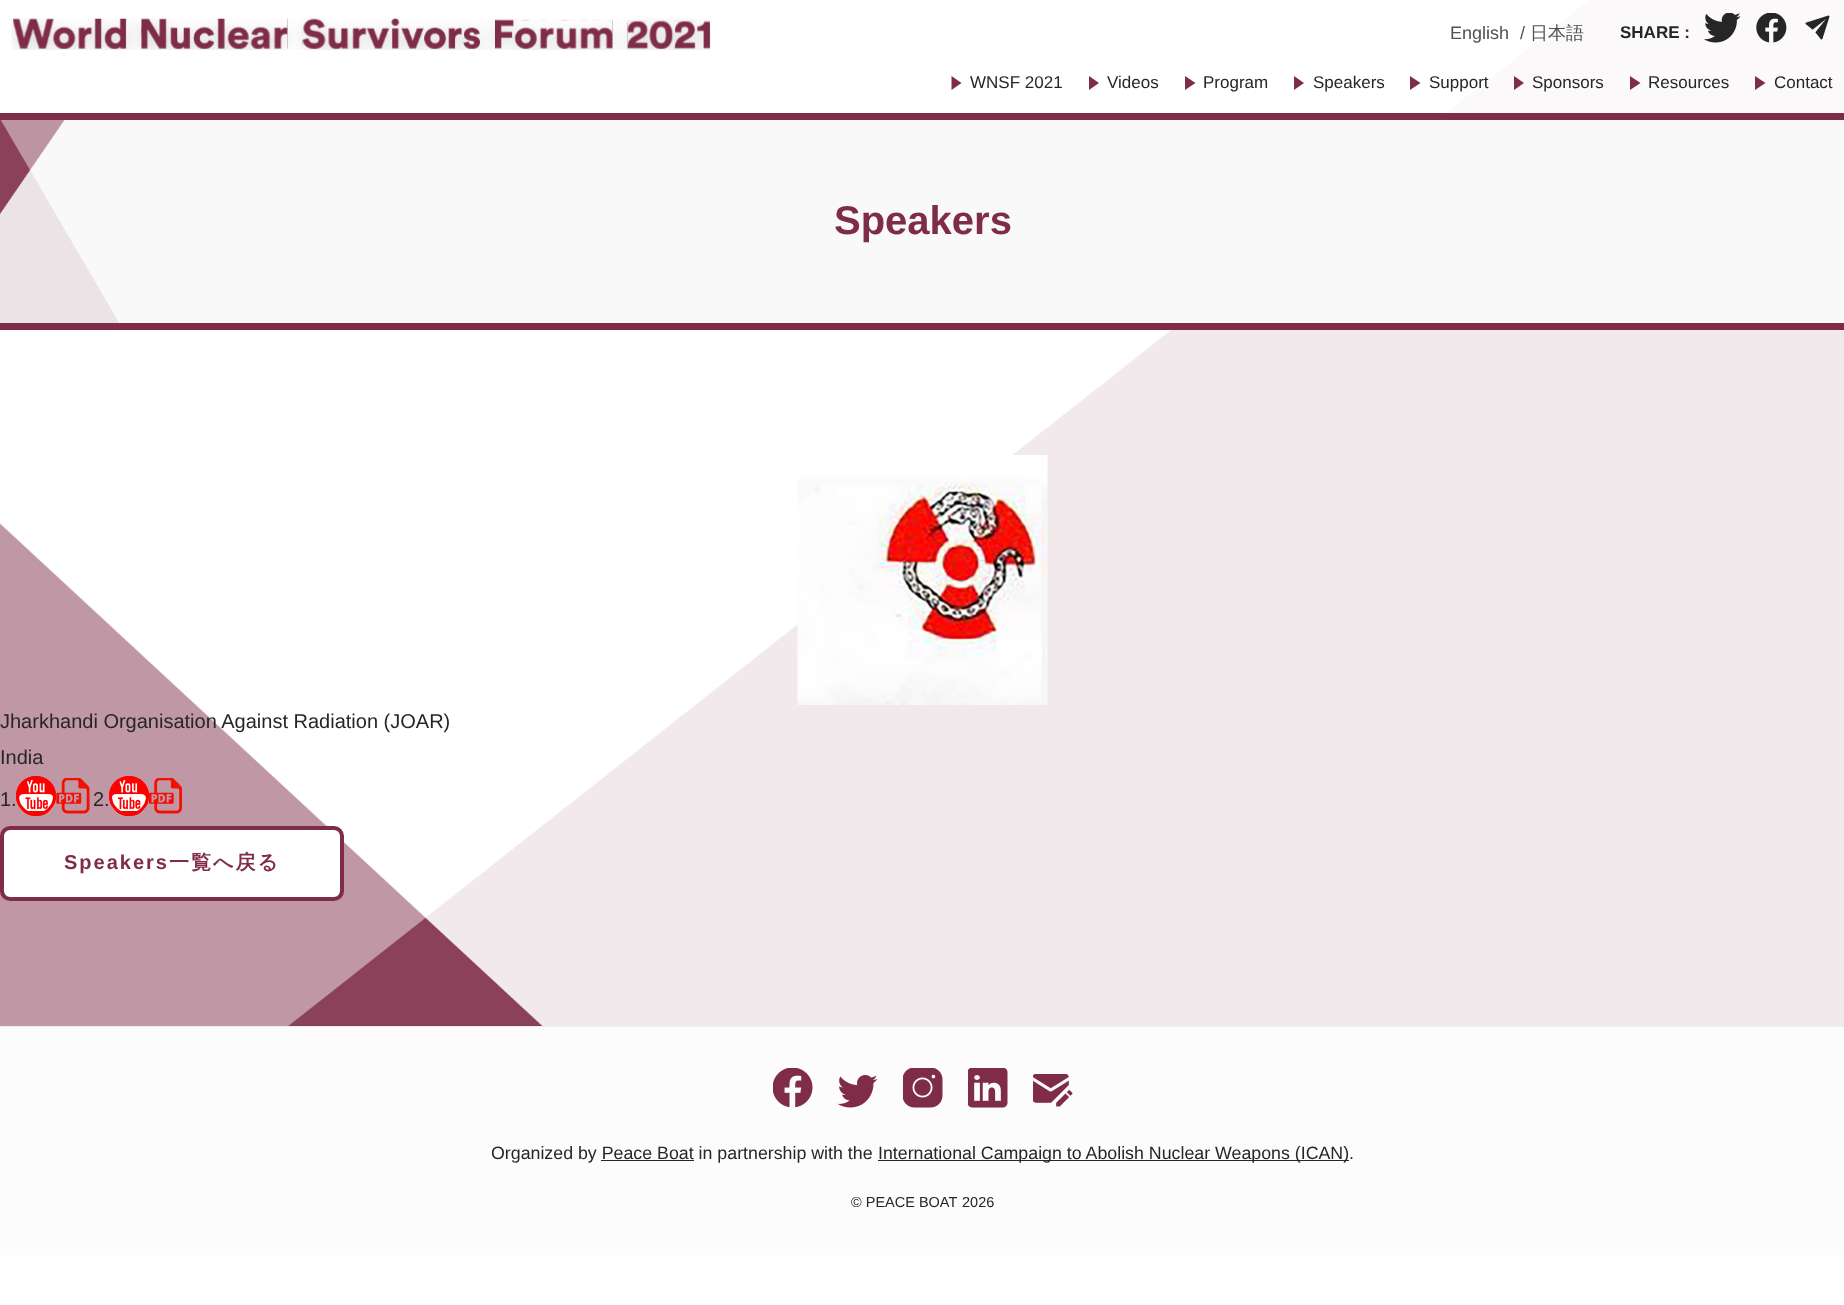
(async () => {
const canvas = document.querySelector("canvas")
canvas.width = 1844
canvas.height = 1305
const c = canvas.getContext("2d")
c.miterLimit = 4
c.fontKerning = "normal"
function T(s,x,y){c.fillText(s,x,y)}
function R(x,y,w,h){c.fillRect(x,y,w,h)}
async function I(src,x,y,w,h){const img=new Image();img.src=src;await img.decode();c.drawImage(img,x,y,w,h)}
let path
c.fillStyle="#fff"
R(0,0,1844,1305)
await I("1.png",0,0,1844,1026)
c.fillStyle="#ffffffb3"
R(1446,0,398,113)
await I("2.png",11,18,700,32)
c.font="18px Liberation Sans"
c.fillStyle="#515151"
T("English",1450,39)
T("/",1520,39)
c.font="500 18px WenQuanYi Zen Hei"
T("日本語",1530,39)
c.font="bold 17px Liberation Sans"
c.fillStyle="#262626"
T("SHARE :",1620,38)
await I("3.png",1704,13,37,30)
await I("4.png",1756,13,31,30)
await I("5.png",1805,15,25,25)
c.fillStyle="#7f2c48"
path = new Path2D("M961.5 83l-10 7v-14z")
c.fill(path)
c.font="17px Liberation Sans"
c.fillStyle="#262626"
T("WNSF 2021",970,88)
c.fillStyle="#7f2c48"
path = new Path2D("M1099 83l-10 7v-14z")
c.fill(path)
c.fillStyle="#262626"
T("Videos",1107,88)
c.fillStyle="#7f2c48"
path = new Path2D("M1195.5 83l-10.5 7v-14z")
c.fill(path)
c.fillStyle="#262626"
T("Program",1203,88)
c.fillStyle="#7f2c48"
path = new Path2D("M1304 83l-10 7v-14z")
c.fill(path)
c.fillStyle="#262626"
T("Speakers",1313,88)
c.fillStyle="#7f2c48"
path = new Path2D("M1420.5 83l-10.5 7v-14z")
c.fill(path)
c.fillStyle="#262626"
T("Support",1429,88)
c.fillStyle="#7f2c48"
path = new Path2D("M1524 83l-10 7v-14z")
c.fill(path)
c.fillStyle="#262626"
T("Sponsors",1532,88)
c.fillStyle="#7f2c48"
path = new Path2D("M1640.5 83l-10.5 7v-14z")
c.fill(path)
c.fillStyle="#262626"
T("Resources",1648,88)
c.fillStyle="#7f2c48"
path = new Path2D("M1765.5 83l-10.5 7v-14z")
c.fill(path)
c.fillStyle="#262626"
T("Contact",1774,88)
c.fillStyle="#f9f9f9"
R(0,120,1844,203)
await I("6.png",0,120,119,203)
c.fillStyle="#7f2c48"
R(0,113,1844,7)
R(0,323,1844,7)
c.font="bold 40px Liberation Sans"
T("Speakers",834,234)
await I("7.png",797,455,251,250)
c.font="20px Liberation Sans"
c.fillStyle="#262626"
T("Jharkhandi Organisation Against Radiation (JOAR)",0,728)
T("India",0,764)
T("1.",0,806)
c.fillStyle="#f00"
c.beginPath()
c.arc(36,796,20,0,7)
c.fill()
await I("8.png",19,780,35,31)
c.beginPath()
c.arc(36,796,18.5,0,7)
c.strokeStyle="#f00"
c.lineWidth=3
c.stroke()
await I("9.png",56,778,34,36)
c.fillStyle="#262626"
T("2.",93,806)
c.fillStyle="#f00"
c.beginPath()
c.arc(129,796,20,0,7)
c.fill()
await I("10.png",111,780,35,31)
c.beginPath()
c.arc(129,796,18.5,0,7)
c.stroke()
await I("11.png",149,778,33,36)
c.fillStyle="#fff"
c.beginPath()
c.roundRect(2,828,340,71,8)
c.fill()
c.strokeStyle="#7f2c48"
c.lineWidth=4
c.stroke()
c.letterSpacing="2px"
c.font="bold 20px Liberation Sans"
c.fillStyle="#7f2c48"
T("Speakers",64,869)
c.font="bold 20px WenQuanYi Zen Hei"
T("一覧へ戻る",169,869)
c.fillStyle="#fdfcfd"
R(0,1027,1844,228)
c.fillStyle="#eee"
R(0,1026,1844,1)
await I("12.png",773,1068,40,40)
await I("13.png",838,1075,40,33)
await I("14.png",903,1068,40,40)
await I("15.png",968,1068,40,40)
await I("16.png",1033,1074,40,33)
c.letterSpacing="0px"
c.font="17.8px Liberation Sans"
c.fillStyle="#262626"
T("Organized by Peace Boat in partnership with the",491,1159)
R(878,1160,471,1)
T("International Campaign to Abolish Nuclear Weapons (ICAN).",878,1159)
R(601,1160,93,1)
c.font="14.5px Liberation Sans"
T("© PEACE BOAT",851,1207)
T("2026",962,1207)
})()
